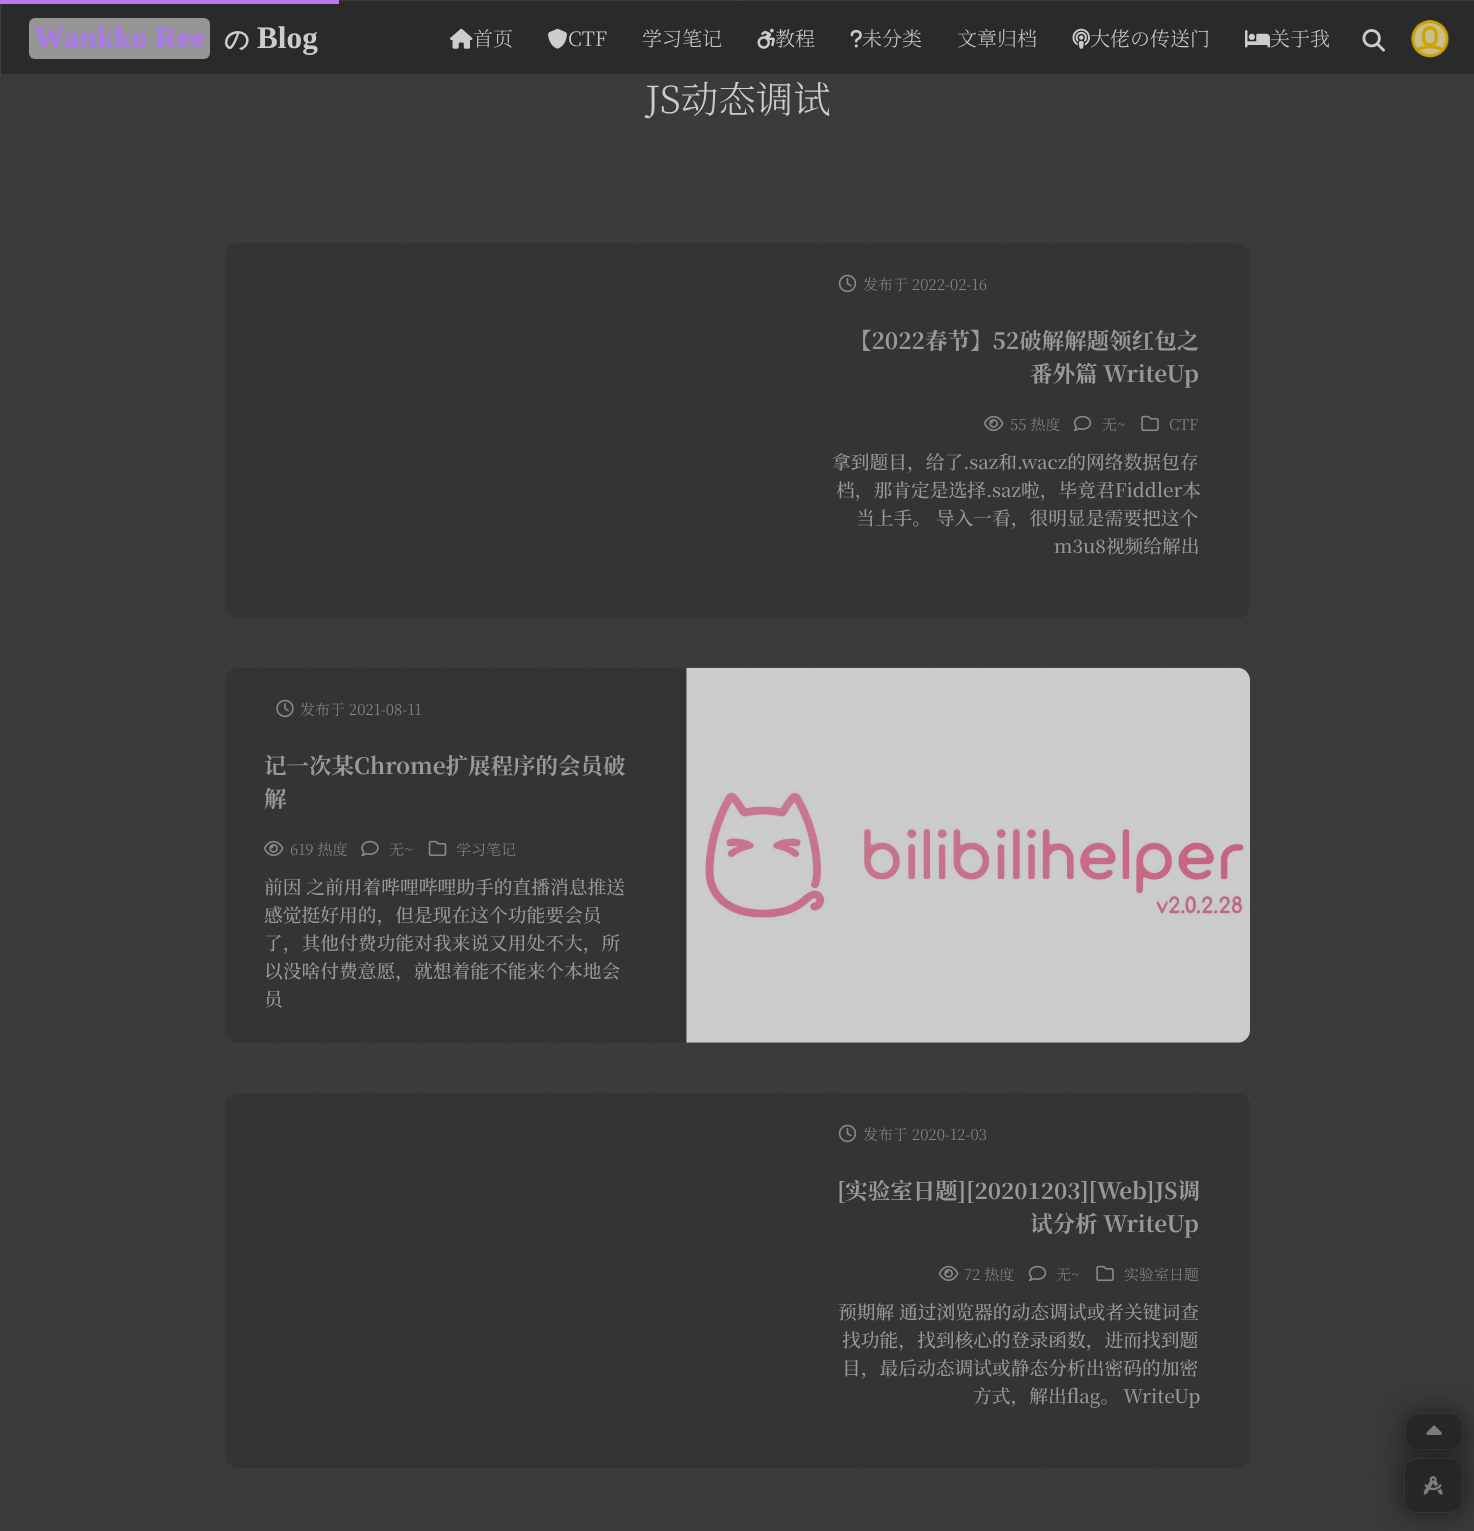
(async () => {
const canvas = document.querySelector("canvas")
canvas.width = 1474
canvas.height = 1531
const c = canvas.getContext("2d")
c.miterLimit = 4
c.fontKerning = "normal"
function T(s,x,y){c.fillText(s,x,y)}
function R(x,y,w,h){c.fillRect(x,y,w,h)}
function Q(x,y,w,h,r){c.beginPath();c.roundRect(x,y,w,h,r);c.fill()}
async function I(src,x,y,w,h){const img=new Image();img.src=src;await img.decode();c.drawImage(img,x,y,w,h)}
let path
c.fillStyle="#fff"
R(0,0,1474,1531)
await I("1.png",0,75,1474,1456)
c.fillStyle="#2a2a2a"
c.beginPath()
c.rect(.5,.5,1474,74)
c.fill()
c.strokeStyle="#3a3a3a"
c.stroke()
c.fillStyle="#b7e"
R(0,0,339,4)
c.fillStyle="#959595"
Q(29,18,181,41,6)
c.font="bold 31.25px Liberation Serif"
c.fillStyle="#a7e"
T("Wankko Ree",34,48)
c.font="bold 25px WenQuanYi Zen Hei"
c.fillStyle="#ccc"
T("の",224,48)
c.font="bold 31.25px Liberation Serif"
T("Blog",257,48)
await I("2.png",450,28,23,21)
c.font="300 20px Noto Serif SC"
T("首页",473,46)
await I("3.png",548,28,19,21)
T("CTF",568,46)
T("学习笔记",642,46)
await I("4.png",757,28,18,21)
T("教程",775,46)
await I("5.png",850,30,12,18)
T("未分类",862,46)
T("文章归档",957,46)
await I("6.png",1072,28,18,21)
T("大佬の传送门",1090,46)
await I("7.png",1245,30,25,18)
T("关于我",1270,46)
await I("8.png",1362,29,23,23)
await I("9.png",1411,20,39,38)
c.font="300 37.5px Noto Serif SC"
T("JS动态调试",645,113)
c.fillStyle="#333333cc"
Q(225,243,1025,375,13)
await I("10.png",838,274,19,19)
c.font="300 15px Noto Serif SC"
c.fillStyle="#888"
T("发布于 2022-02-16",863,290)
c.font="bold 22.5px Noto Serif SC"
c.fillStyle="#999"
T("【2022春节】52破解解题领红包之",849,349)
T("番外篇 WriteUp",1030,382)
await I("11.png",983,415,21,17)
c.font="300 15px Noto Serif SC"
c.fillStyle="#888"
T("55 热度",1010,430)
await I("12.png",1073,415,19,17)
T("无~",1102,430)
await I("13.png",1141,415,18,17)
T("CTF",1169,430)
c.font="500 18.75px Noto Serif SC"
c.fillStyle="#999"
T("拿到题目，给了.saz和.wacz的网络数据包存",832,469)
T("档，那肯定是选择.saz啦，毕竟君Fiddler本",836,497)
T("当上手。 导入一看，很明显是需要把这个",856,525)
T("m3u8视频给解出",1054,553)
c.fillStyle="#333333cc"
Q(225,668,1025,375,13)
await I("14.png",276,699,18,19)
c.font="300 15px Noto Serif SC"
c.fillStyle="#888"
T("发布于 2021-08-11",300,715)
c.font="bold 22.5px Noto Serif SC"
c.fillStyle="#999"
T("记一次某Chrome扩展程序的会员破",264,774)
T("解",264,807)
await I("15.png",264,840,20,17)
c.font="300 15px Noto Serif SC"
c.fillStyle="#888"
T("619 热度",290,855)
await I("16.png",361,840,18,16)
T("无~",389,855)
await I("17.png",428,840,19,17)
T("学习笔记",456,855)
c.font="500 18.75px Noto Serif SC"
c.fillStyle="#999"
T("前因 之前用着哔哩哔哩助手的直播消息推送",264,894)
T("感觉挺好用的，但是现在这个功能要会员",264,922)
T("了，其他付费功能对我来说又用处不大，所",264,950)
T("以没啥付费意愿，就想着能不能来个本地会",264,978)
T("员",264,1006)
await I("18.png",686,667,564,376)
c.fillStyle="#333333cc"
Q(225,1093,1025,375,13)
await I("19.png",838,1124,19,19)
c.font="300 15px Noto Serif SC"
c.fillStyle="#888"
T("发布于 2020-12-03",863,1140)
c.font="bold 22.5px Noto Serif SC"
c.fillStyle="#999"
T("[实验室日题][20201203][Web]JS调",837,1199)
T("试分析 WriteUp",1030,1232)
await I("20.png",938,1265,21,17)
c.font="300 15px Noto Serif SC"
c.fillStyle="#888"
T("72 热度",964,1280)
await I("21.png",1028,1265,19,17)
T("无~",1056,1280)
await I("22.png",1096,1265,18,17)
T("实验室日题",1124,1280)
c.font="500 18.75px Noto Serif SC"
c.fillStyle="#999"
T("预期解 通过浏览器的动态调试或者关键词查",838,1319)
T("找功能，找到核心的登录函数，进而找到题",842,1347)
T("目，最后动态调试或静态分析出密码的加密",842,1375)
c.wordSpacing="-1px"
T("方式，解出flag。 WriteUp",973,1403)
c.save()
path = new Path2D("M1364 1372h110v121h-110zm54 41h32c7 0 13 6 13 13v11c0 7-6 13-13 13h-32c-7 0-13-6-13-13v-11c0-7 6-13 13-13z")
c.clip(path,"evenodd")
c.fillStyle="#1a1a1acc"
c.filter="blur(12.5px)"
c.beginPath()
c.roundRect(1403,1411,62,43,15)
c.fill()
c.filter="none"
c.restore()
c.fillStyle="#1a1a1a99"
Q(1405,1413,58,37,13)
c.beginPath()
c.roundRect(1405.5,1413.5,57,36,12.5)
c.strokeStyle="#7d7d7d30"
c.stroke()
await I("23.png",1426,1425,16,10)
c.save()
path = new Path2D("M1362 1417h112v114h-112zm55 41h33c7 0 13 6 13 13v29c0 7-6 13-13 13h-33c-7 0-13-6-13-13v-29c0-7 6-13 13-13z")
c.clip(path,"evenodd")
c.fillStyle="#1a1a1acc"
c.filter="blur(12.5px)"
c.beginPath()
c.roundRect(1401,1456,64,60,15)
c.fill()
c.filter="none"
c.restore()
Q(1404,1458,59,55,13)
c.beginPath()
c.roundRect(1404.5,1458.5,58,54,12.5)
c.stroke()
await I("24.png",1423,1476,20,19)
})()
